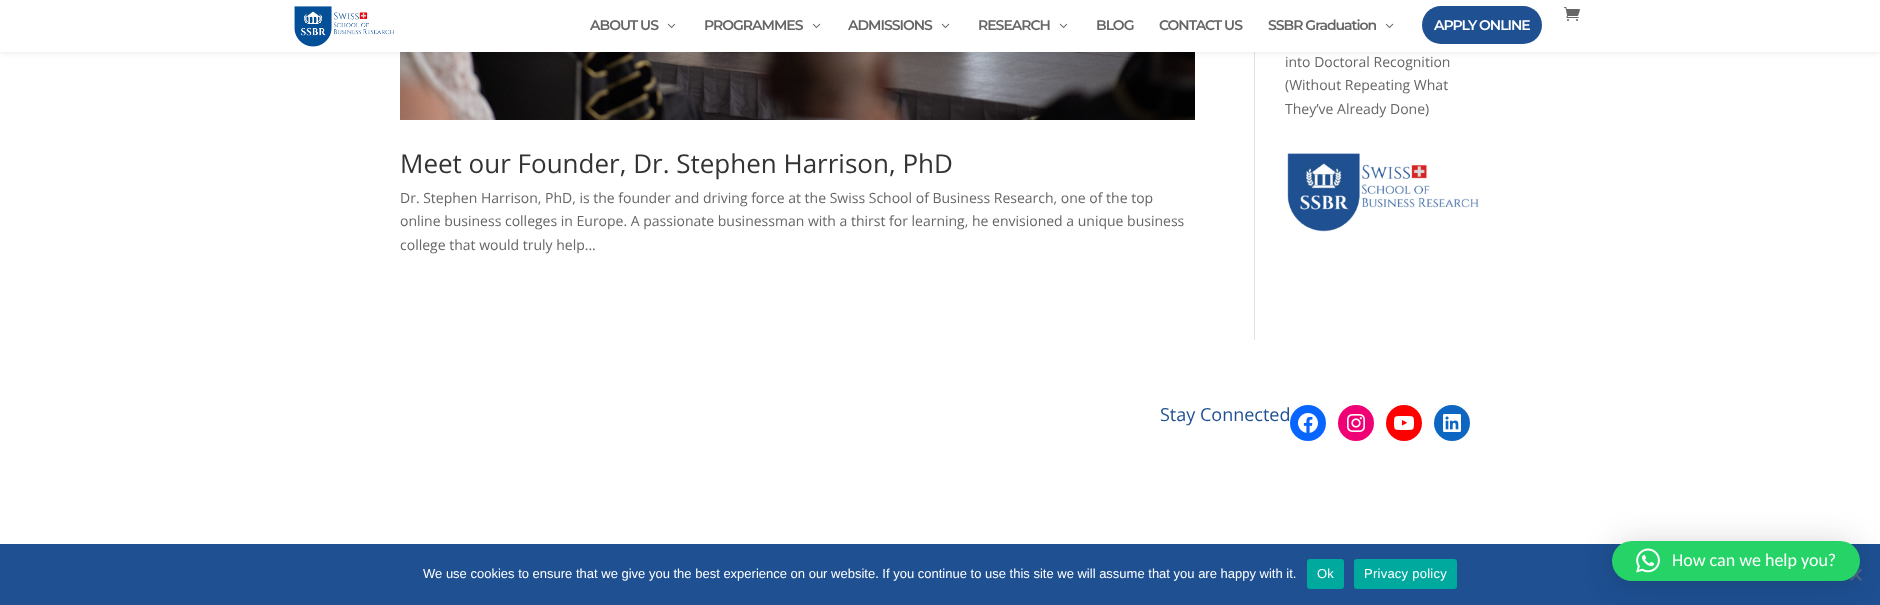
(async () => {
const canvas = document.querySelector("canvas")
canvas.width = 1880
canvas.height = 605
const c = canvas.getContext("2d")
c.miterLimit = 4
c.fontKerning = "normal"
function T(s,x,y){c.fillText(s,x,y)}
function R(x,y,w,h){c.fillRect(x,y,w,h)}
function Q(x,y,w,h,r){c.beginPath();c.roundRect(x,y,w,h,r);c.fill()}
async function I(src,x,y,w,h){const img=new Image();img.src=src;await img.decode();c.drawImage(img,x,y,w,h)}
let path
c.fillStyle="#fff"
R(0,0,1880,605)
c.fillStyle="#e2e2e2"
R(1254,52,1,288)
await I("5.png",400,52,795,68)
c.fillStyle="#0000001a"
c.filter="blur(3.5px)"
c.beginPath()
c.rect(0,0,1880,52)
c.fill()
c.filter="none"
c.fillStyle="#fff"
R(0,0,1880,52)
await I("1.png",294,6,100,41)
await I("2.png",1564,7,16,14)
c.letterSpacing="-1px"
c.font="100 14px Montserrat"
c.fillStyle="#666"
T("ABOUT US",590,30)
await I("3.png",667,23,9,5)
T("PROGRAMMES",704,30)
await I("3.png",812,23,9,5)
T("ADMISSIONS",848,30)
await I("3.png",941,23,9,5)
T("RESEARCH",978,30)
await I("3.png",1059,23,9,5)
T("BLOG",1096,30)
T("CONTACT US",1159,30)
T("SSBR Graduation",1268,30)
await I("3.png",1385,23,9,5)
c.fillStyle="#1e5092"
Q(1422,6,120,38,19)
c.fillStyle="#fff"
T("APPLY ONLINE",1434,30)
c.letterSpacing="0px"
c.font="14px Open Sans"
c.fillStyle="#666"
T("into Doctoral Recognition",1285,67)
T("(Without Repeating What",1285,90)
T("They’ve Already Done)",1285,114)
await I("4.png",1287,153,192,79)
c.font="26px Open Sans"
c.fillStyle="#333"
T("Meet our Founder, Dr. Stephen Harrison, PhD",400,173)
c.font="14px Open Sans"
c.fillStyle="#666"
T("Dr. Stephen Harrison, PhD, is the founder and driving force at the Swiss School of Business Research, one of the top",400,203)
T("online business colleges in Europe. A passionate businessman with a thirst for learning, he envisioned a unique business",400,226)
T("college that would truly help...",400,250)
c.font="18px Open Sans"
c.fillStyle="#1e5092"
T("Stay Connected",1160,421)
c.fillStyle="#0866ff"
c.beginPath()
c.arc(1308,423,18,0,7)
c.fill()
await I("6.png",1298,413,20,20)
c.fillStyle="#f00075"
c.beginPath()
c.arc(1356,423,18,0,7)
c.fill()
await I("7.png",1347,414,18,18)
c.fillStyle="#f00"
c.beginPath()
c.arc(1404,423,18,0,7)
c.fill()
await I("8.png",1394,416,20,14)
c.fillStyle="#0d66c2"
c.beginPath()
c.arc(1452,423,18,0,7)
c.fill()
await I("9.png",1443,414,18,18)
c.fillStyle="#1e5092"
R(0,544,1880,61)
c.fillStyle="#4f6889"
path = new Path2D("M1860.5 568.5l1.5 1.5l-10.5 11l-1.5-1.5z")
c.fill(path)
path = new Path2D("M1850 570l1.5-1.5l10.5 11l-1.5 1.5z")
c.fill(path)
c.fillStyle="#00000029"
c.filter="blur(16px)"
c.beginPath()
c.roundRect(1612,543,248,40,20)
c.fill()
c.filter="none"
c.fillStyle="#25d366"
Q(1612,541,248,40,20)
await I("10.png",1636,548,24,25)
c.font="18px Carlito"
c.fillStyle="#fff"
T("How can we help you?",1672,566)
c.font="13px Liberation Sans"
T("We use cookies to ensure that we give you the best experience on our website. If you continue to use this site we will assume that you are happy with it.",423,578)
c.fillStyle="#00a99d"
Q(1307,559,37,30,3)
c.letterSpacing="0.25px"
c.fillStyle="#fff"
T("Ok",1317,578)
c.fillStyle="#00a99d"
Q(1354,559,103,30,3)
c.fillStyle="#fff"
T("Privacy policy",1364,578)
})()
